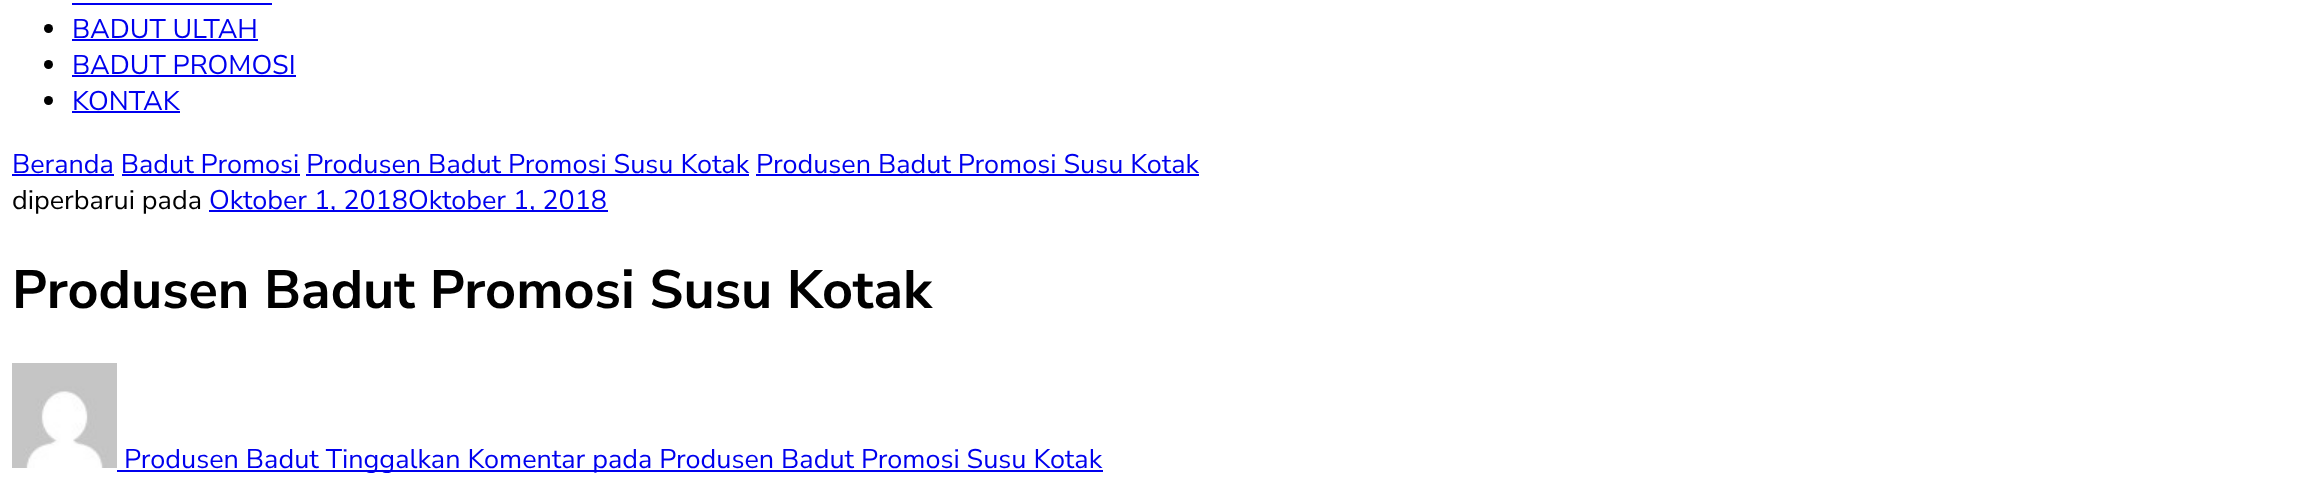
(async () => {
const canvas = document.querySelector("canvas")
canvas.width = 2307
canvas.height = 482
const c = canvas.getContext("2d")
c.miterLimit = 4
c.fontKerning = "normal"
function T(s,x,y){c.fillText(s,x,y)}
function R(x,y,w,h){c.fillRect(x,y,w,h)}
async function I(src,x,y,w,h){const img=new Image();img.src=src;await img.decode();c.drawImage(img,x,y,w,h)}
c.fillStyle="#fff"
R(0,0,2307,482)
c.fillStyle="#00e"
R(72,3,200,2)
c.fillStyle="#000"
c.beginPath()
c.arc(48.5,28.5,4.5,0,7)
c.fill()
c.font="27px Nunito Sans"
c.fillStyle="#00e"
T("BADUT ULTAH",72,38)
R(72,39,186,2)
c.fillStyle="#000"
c.beginPath()
c.arc(48.5,64.5,4.5,0,7)
c.fill()
c.fillStyle="#00e"
T("BADUT PROMOSI",72,74)
R(72,75,224,2)
c.fillStyle="#000"
c.beginPath()
c.arc(48.5,100.5,4.5,0,7)
c.fill()
c.fillStyle="#00e"
T("KONTAK",72,110)
R(72,111,108,2)
T("Beranda Badut Promosi Produsen Badut Promosi Susu Kotak Produsen Badut Promosi Susu Kotak",12,173)
R(12,174,102,2)
R(122,174,178,2)
R(306,174,443,2)
R(756,174,443,2)
c.fillStyle="#000"
T("diperbarui pada",12,209)
c.fillStyle="#00e"
R(209,210,399,2)
T("Oktober 1, 2018Oktober 1, 2018",209,209)
c.font="bold 54px Nunito Sans"
c.fillStyle="#000"
T("Produsen Badut Promosi Susu Kotak",12,308)
await I("1.png",12,363,105,105)
c.fillStyle="#00e"
R(117,470,986,2)
c.font="27px Nunito Sans"
T("Produsen Badut Tinggalkan Komentar pada Produsen Badut Promosi Susu Kotak",124,468)
})()
